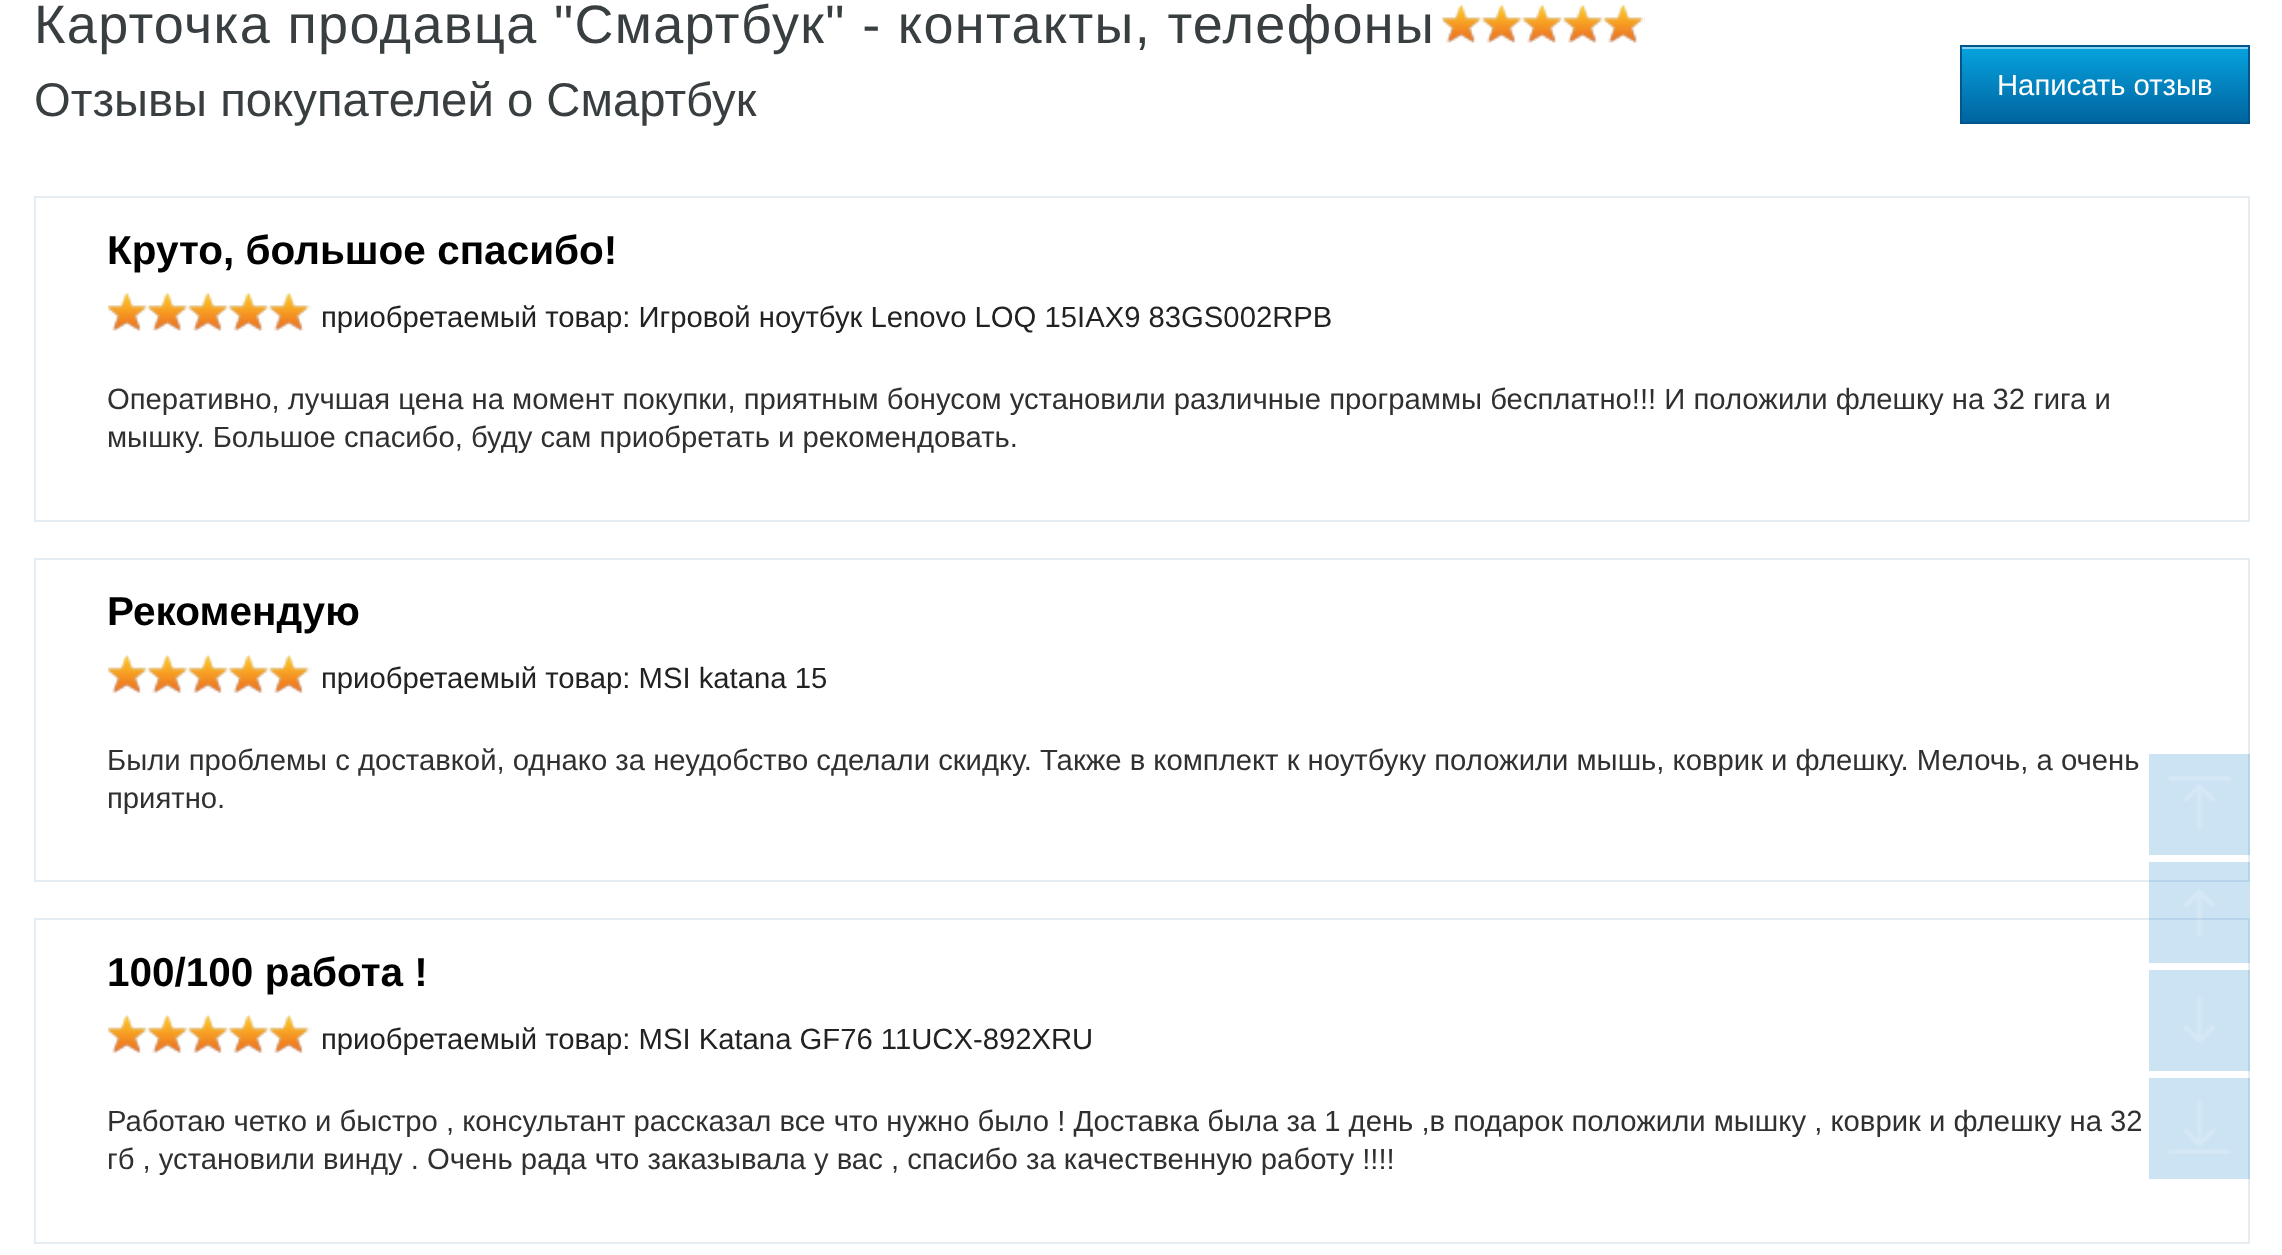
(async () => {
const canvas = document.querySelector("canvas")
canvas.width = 2282
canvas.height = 1255
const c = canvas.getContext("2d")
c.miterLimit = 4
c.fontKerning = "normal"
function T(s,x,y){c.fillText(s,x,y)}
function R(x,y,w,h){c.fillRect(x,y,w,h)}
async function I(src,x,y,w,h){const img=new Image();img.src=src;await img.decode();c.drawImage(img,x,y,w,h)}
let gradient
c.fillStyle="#fff"
R(0,0,2282,1255)
c.letterSpacing="1.35px"
c.font="54px Liberation Sans"
c.fillStyle="#393e40"
T("Карточка продавца \"Смартбук\" - контакты, телефоны",34,43)
await I("1.png",1442,4,203,39)
await I("2.png",1442,4,203,39)
c.letterSpacing="0px"
c.font="47.25px Liberation Sans"
T("Отзывы покупателей о Смартбук",34,116)
gradient = c.createLinearGradient(2105,47,2105,122)
gradient.addColorStop(0,"#06a3de")
gradient.addColorStop(1,"#0064a0")
c.fillStyle = gradient
R(1962,49,286,73)
c.fillStyle="#83d1ee"
R(1962,47,286,2)
c.strokeStyle="#00568c"
c.lineWidth=2
c.strokeRect(1961,46,288,77)
c.font="29.25px Liberation Sans"
c.fillStyle="#fff"
T("Написать отзыв",1997,95)
c.strokeStyle="#e5ecf2"
c.strokeRect(35,197,2214,324)
c.font="bold 40.5px Liberation Sans"
c.fillStyle="#000"
T("Круто, большое спасибо!",107,264)
await I("3.png",108,292,203,39)
await I("4.png",108,292,203,39)
c.font="29.25px Liberation Sans"
c.fillStyle="#222"
T("приобретаемый товар: Игровой ноутбук Lenovo LOQ 15IAX9 83GS002RPB",321,327)
c.fillStyle="#303030"
T("Оперативно, лучшая цена на момент покупки, приятным бонусом установили различные программы бесплатно!!! И положили флешку на 32 гига и",107,409)
T("мышку. Большое спасибо, буду сам приобретать и рекомендовать.",107,447)
c.strokeRect(35,559,2214,322)
c.font="bold 40.5px Liberation Sans"
c.fillStyle="#000"
T("Рекомендую",107,625)
await I("5.png",108,655,203,38)
await I("6.png",108,654,203,39)
c.font="29.25px Liberation Sans"
c.fillStyle="#222"
T("приобретаемый товар: MSI katana 15",321,688)
c.fillStyle="#303030"
T("Были проблемы с доставкой, однако за неудобство сделали скидку. Также в комплект к ноутбуку положили мышь, коврик и флешку. Мелочь, а очень",107,770)
T("приятно.",107,808)
c.strokeRect(35,919,2214,324)
c.font="bold 40.5px Liberation Sans"
c.fillStyle="#000"
T("100/100 работа !",107,986)
await I("7.png",108,1015,203,38)
await I("8.png",108,1014,203,39)
c.font="29.25px Liberation Sans"
c.fillStyle="#222"
T("приобретаемый товар: MSI Katana GF76 11UCX-892XRU",321,1049)
c.fillStyle="#303030"
T("Работаю четко и быстро , консультант рассказал все что нужно было ! Доставка была за 1 день ,в подарок положили мышку , коврик и флешку на 32",107,1131)
T("гб , установили винду . Очень рада что заказывала у вас , спасибо за качественную работу !!!!",107,1169)
c.fillStyle="#0074c833"
R(2149,754,101,101)
await I("9.png",2168,776,63,54)
R(2149,862,101,101)
await I("10.png",2183,889,33,47)
R(2149,970,101,101)
await I("11.png",2183,997,33,46)
R(2149,1078,101,101)
await I("12.png",2168,1100,63,54)
})()
